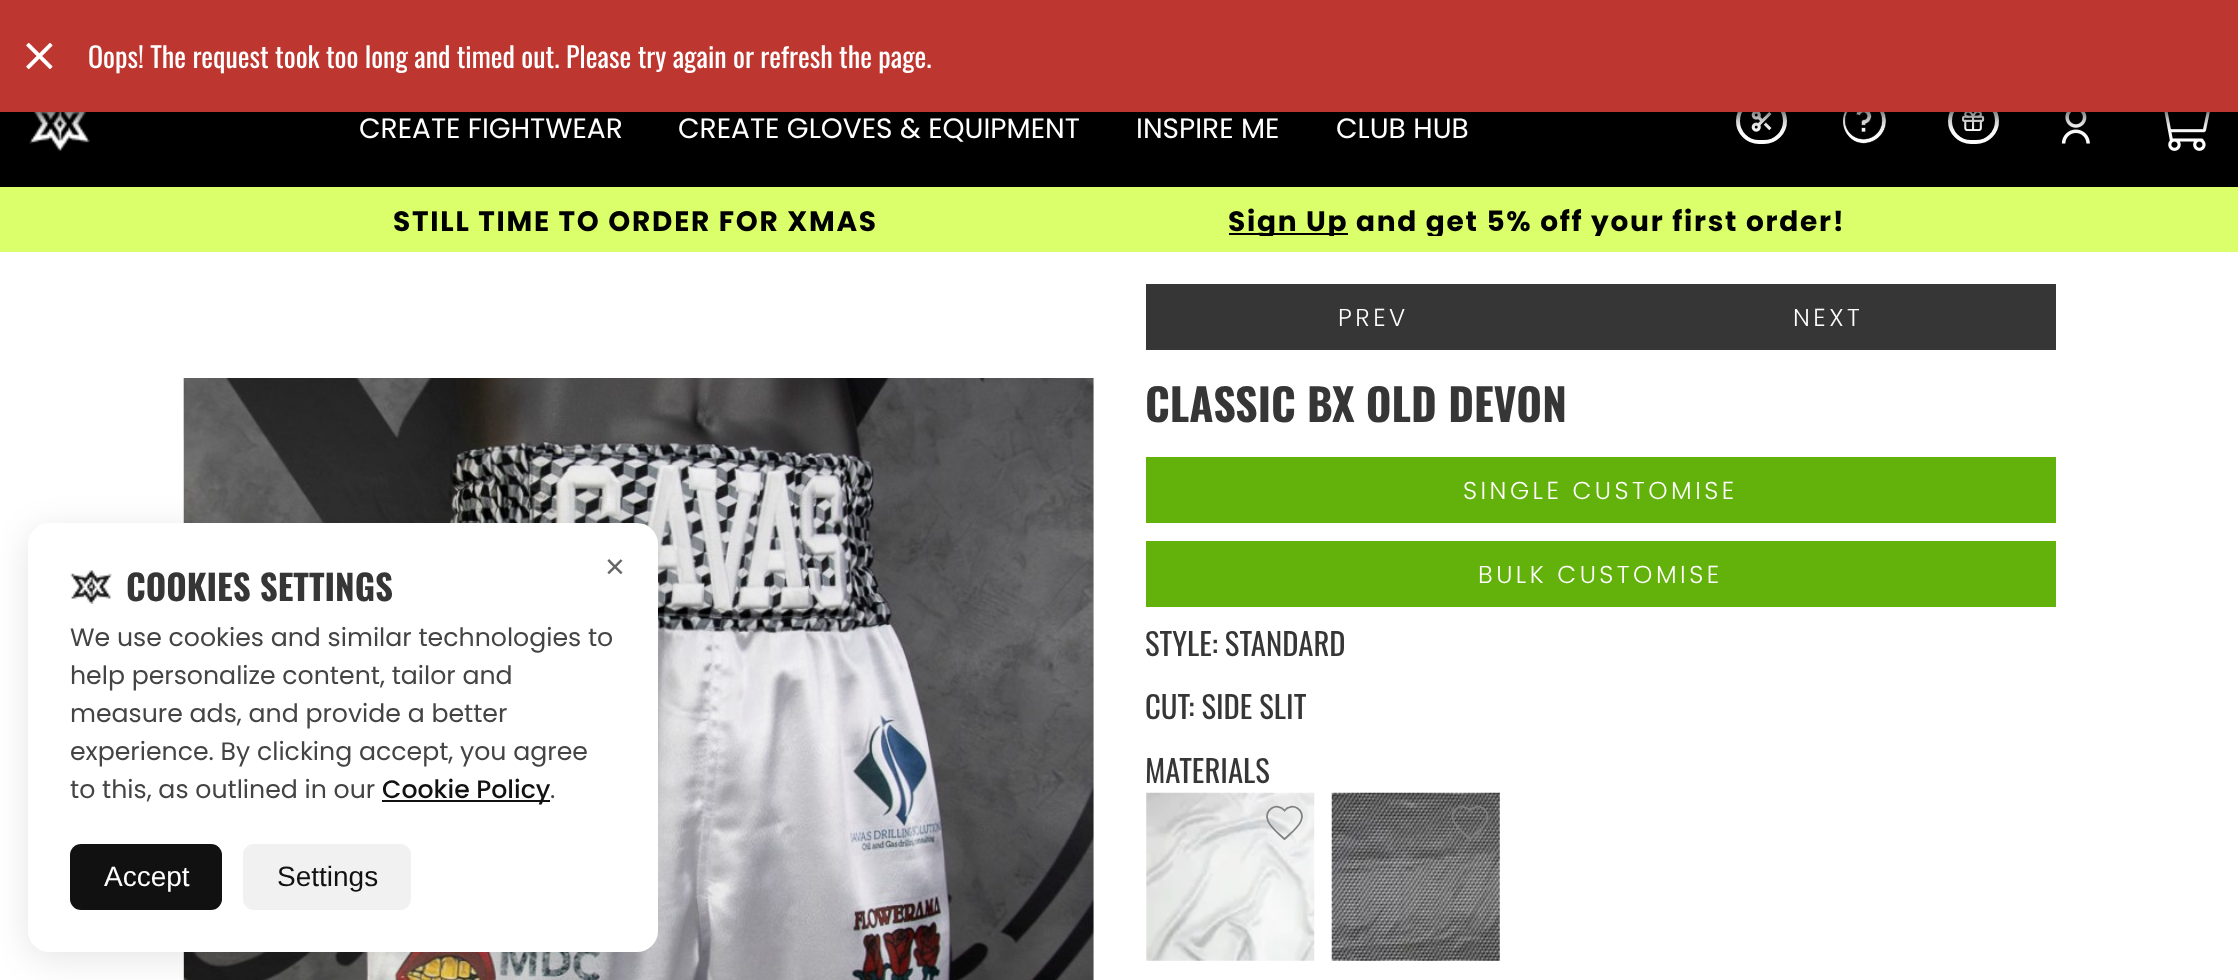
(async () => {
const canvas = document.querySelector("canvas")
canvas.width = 2238
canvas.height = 980
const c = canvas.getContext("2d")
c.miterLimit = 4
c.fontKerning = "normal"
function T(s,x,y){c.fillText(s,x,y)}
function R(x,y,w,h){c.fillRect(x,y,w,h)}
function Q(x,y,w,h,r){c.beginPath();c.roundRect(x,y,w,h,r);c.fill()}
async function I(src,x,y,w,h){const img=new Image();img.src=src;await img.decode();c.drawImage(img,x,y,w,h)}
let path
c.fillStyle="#fff"
R(0,0,2238,980)
c.fillStyle="#000"
R(0,112,2238,75)
await I("2.png",29,112,61,39)
c.beginPath()
c.roundRect(1738,100,47,42,21)
c.strokeStyle="#fff"
c.lineWidth=4
c.stroke()
await I("3.png",1751,112,21,20)
await I("4.png",1843,112,44,32)
c.beginPath()
c.roundRect(1950,100,47,42,21)
c.stroke()
await I("5.png",1962,112,23,19)
await I("6.png",2061,112,29,32)
await I("7.png",2164,112,46,39)
c.filter="blur(10.5px)"
c.beginPath()
c.rect(0,0,2238,112)
c.fill()
c.filter="none"
c.fillStyle="#bd362f"
R(0,0,2238,112)
await I("1.png",26,42,27,28)
c.font="28px Oswald"
c.fillStyle="#fff"
T("Oops! The request took too long and timed out. Please try again or refresh the page.",88,68)
c.font="28px Poppins"
T("CREATE FIGHTWEAR",359,138)
T("CREATE GLOVES & EQUIPMENT",678,138)
T("INSPIRE ME",1136,138)
T("CLUB HUB",1336,138)
c.fillStyle="#daff6a"
R(0,187,2238,65)
c.letterSpacing="1.75px"
c.font="bold 28px Poppins"
c.fillStyle="#000"
T("STILL TIME TO ORDER FOR XMAS",393,231)
R(1229,233,119,2)
c.save()
c.beginPath()
c.rect(44,203,2152,33)
c.clip()
T("Sign Up and get 5% off your first order!",1228,231)
c.restore()
await I("9.png",183,378,911,602)
await I("10.png",183,378,1,602)
c.fillStyle="#0000001a"
c.filter="blur(17.5px)"
c.beginPath()
c.roundRect(28,530,630,429,21)
c.fill()
c.filter="none"
c.fillStyle="#fff"
Q(28,523,630,429,21)
c.letterSpacing="0px"
c.font="34px Liberation Sans"
c.fillStyle="#666"
T("×",605,578)
await I("8.png",70,570,42,34)
c.font="bold 35px Oswald"
c.fillStyle="#363636"
T("COOKIES SETTINGS",126,601)
c.font="25.2px Poppins"
c.fillStyle="#444"
T("We use cookies and similar technologies to",70,646)
T("help personalize content, tailor and",70,684)
T("measure ads, and provide a better",70,722)
T("experience. By clicking accept, you agree",70,760)
T("to this, as outlined in our",70,798)
c.fillStyle="#111"
R(382,800,168,2)
c.font="500 25.2px Poppins"
T("Cookie Policy",382,798)
c.font="25.2px Poppins"
c.fillStyle="#444"
T(".",550,798)
c.fillStyle="#111"
Q(70,844,152,66,11)
c.font="28px Liberation Sans"
c.fillStyle="#fff"
T("Accept",104,886)
c.fillStyle="#f1f1f1"
Q(243,844,168,66,11)
c.fillStyle="#111"
T("Settings",277,886)
c.fillStyle="#363636"
R(1146,284,910,66)
c.letterSpacing="3.5px"
c.font="300 24.5px Poppins"
c.fillStyle="#fff"
T("PREV",1338,326)
T("NEXT",1793,326)
c.letterSpacing="0px"
c.font="bold 44px Oswald"
c.fillStyle="#363636"
T("CLASSIC BX OLD DEVON",1145,422)
c.fillStyle="#63b20b"
R(1146,457,910,66)
c.letterSpacing="3.5px"
c.font="300 24.5px Poppins"
c.fillStyle="#fff"
T("SINGLE CUSTOMISE",1463,499)
c.fillStyle="#63b20b"
R(1146,541,910,66)
c.fillStyle="#fff"
T("BULK CUSTOMISE",1478,583)
c.letterSpacing="0px"
c.font="30.75px Oswald"
c.fillStyle="#363636"
T("STYLE: STANDARD",1145,656)
T("CUT: SIDE SLIT",1145,719)
T("MATERIALS",1145,783)
await I("11.png",1146,792,169,169)
path = new Path2D("M1284.5 839c-5.5-5-13.5-11-16.5-18c-5-11 9-19.5 16.5-10.5c7.5-9 21.5-.5 16.5 10.5c-3 7-11 13-16.5 18z")
c.strokeStyle="#808080"
c.lineWidth=1.8
c.stroke(path)
await I("12.png",1331,792,169,169)
path = new Path2D("M1470 839c-5.5-5-13.5-11-16.5-18c-5-11 9-19.5 16.5-10.5c7.5-9 21.5-.5 16.5 10.5c-3 7-11 13-16.5 18z")
c.stroke(path)
})()
